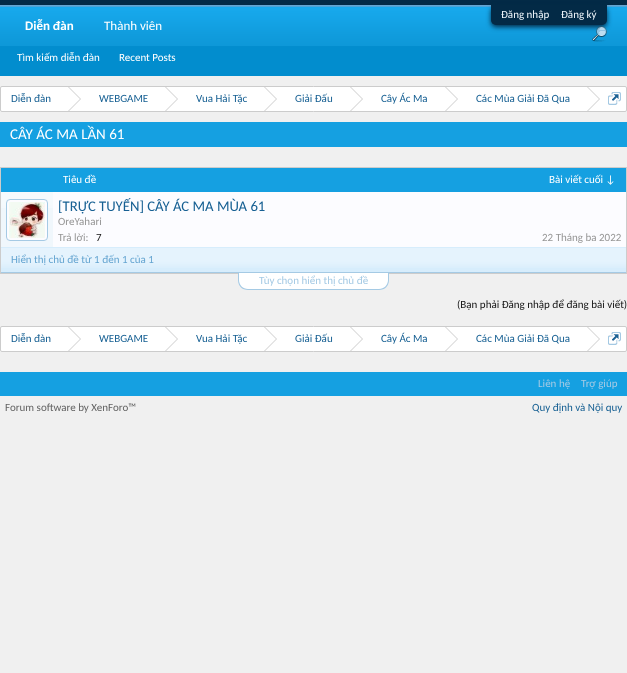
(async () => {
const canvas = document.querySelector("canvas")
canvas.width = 627
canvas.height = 673
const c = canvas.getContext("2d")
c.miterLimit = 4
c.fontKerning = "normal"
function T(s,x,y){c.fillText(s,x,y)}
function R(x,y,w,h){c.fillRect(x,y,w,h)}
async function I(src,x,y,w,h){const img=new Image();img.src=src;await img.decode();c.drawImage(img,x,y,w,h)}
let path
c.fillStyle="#f0f0f0"
R(0,0,627,673)
c.fillStyle="#032a46"
R(0,0,627,5)
c.fillStyle="#65a5d1"
R(0,5,627,1)
await I("1.png",0,6,627,70)
c.fillStyle="#032a46"
c.filter="blur(2.5px)"
c.beginPath()
c.roundRect(491,7,116,20,5)
c.fill()
c.filter="none"
c.beginPath()
c.roundRect(491,5,116,20,[0,0,5,5])
c.fill()
c.font="11px Carlito"
c.fillStyle="#f0f7fc"
T("Đăng nhập",501,18)
T("Đăng ký",561,18)
c.font="bold 13px Carlito"
c.fillStyle="#fff"
T("Diễn đàn",25,30)
c.font="11px Carlito"
T("Tìm kiếm diễn đàn",17,61)
T("Recent Posts",119,61)
c.font="13px Carlito"
T("Thành viên",104,30)
await I("2.png",592,26,15,16)
c.beginPath()
c.roundRect(.5,86.5,626,25,1.5)
c.fill()
c.strokeStyle="#ccc"
c.stroke()
c.font="11px Carlito"
c.fillStyle="#176093"
T("Diễn đàn",11,102)
await I("3.png",68,87,13,24)
T("WEBGAME",99,102)
await I("3.png",165,87,13,24)
T("Vua Hải Tặc",196,102)
await I("3.png",264,87,13,24)
T("Giải Đấu",295,102)
await I("3.png",350,87,13,24)
T("Cây Ác Ma",381,102)
await I("3.png",445,87,13,24)
T("Các Mùa Giải Đã Qua",476,102)
await I("3.png",587,87,13,24)
await I("4.png",608,92,13,13)
c.fillStyle="#15a0e1"
R(0,122,627,25)
c.font="15px Carlito"
c.fillStyle="#fff"
T("CÂY ÁC MA LẦN 61",10,139)
c.strokeRect(.5,167.5,626,106)
c.fillStyle="#15a0e1"
R(1,168,625,24)
c.font="11px Carlito"
c.fillStyle="#fff"
T("Tiêu đề",63,183)
T("Bài viết cuối ↓",549,183)
c.fillStyle="#fcfcff"
R(53,192,573,55)
c.fillStyle="#d7edfc"
R(1,247,625,25)
c.fillStyle="#f0f7fc"
R(1,192,52,55)
await I("5.png",1,192,52,16)
c.fillStyle="#fcfcff"
c.beginPath()
c.roundRect(6.5,199.5,41,41,3.5)
c.fill()
c.strokeStyle="#a5cae4"
c.stroke()
await I("6.png",9,202,36,36)
c.font="14.7px Carlito"
c.fillStyle="#176093"
T("[TRỰC TUYẾN] CÂY ÁC MA MÙA 61",58,211)
c.font="11px Carlito"
c.fillStyle="#969696"
T("OreYahari",58,225)
T("Trả lời:",58,241)
c.fillStyle="#141414"
T("7",96,241)
c.fillStyle="#969696"
T("22 Tháng ba 2022",542,241)
await I("7.png",1,248,625,20)
c.fillStyle="#a5cae4"
R(1,272,625,1)
c.fillStyle="#65a5d1"
T("Hiển thị chủ đề từ 1 đến 1 của 1",11,263)
c.fillStyle="#fff"
c.beginPath()
c.roundRect(238,273,151,17,[0,0,10,10])
c.fill()
c.fillStyle="#a5cae4"
path = new Path2D("M238 273h151v7c0 6-4 10-10 10h-131c-6 0-10-4-10-10zm1 0h149v7c0 5-4 9-9 9h-131c-5 0-9-4-9-9z")
c.fill(path,"evenodd")
T("Tùy chọn hiển thị chủ đề",259,284)
c.fillStyle="#141414"
T("(Bạn phải Đăng nhập để đăng bài viết)",457,308)
c.fillStyle="#fff"
c.beginPath()
c.roundRect(.5,326.5,626,25,1.5)
c.fill()
c.strokeStyle="#ccc"
c.stroke()
c.fillStyle="#176093"
T("Diễn đàn",11,342)
await I("3.png",68,327,13,24)
T("WEBGAME",99,342)
await I("3.png",165,327,13,24)
T("Vua Hải Tặc",196,342)
await I("3.png",264,327,13,24)
T("Giải Đấu",295,342)
await I("3.png",350,327,13,24)
T("Cây Ác Ma",381,342)
await I("3.png",445,327,13,24)
T("Các Mùa Giải Đã Qua",476,342)
await I("3.png",587,327,13,24)
await I("4.png",608,332,13,13)
c.fillStyle="#15a0e1"
R(0,372,627,24)
c.fillStyle="#a5cae4"
T("Liên hệ",538,387)
T("Trợ giúp",581,387)
c.fillStyle="#646464"
T("Forum software by XenForo™",5,411)
c.fillStyle="#176093"
T("Quy định và Nội quy",532,411)
})()
